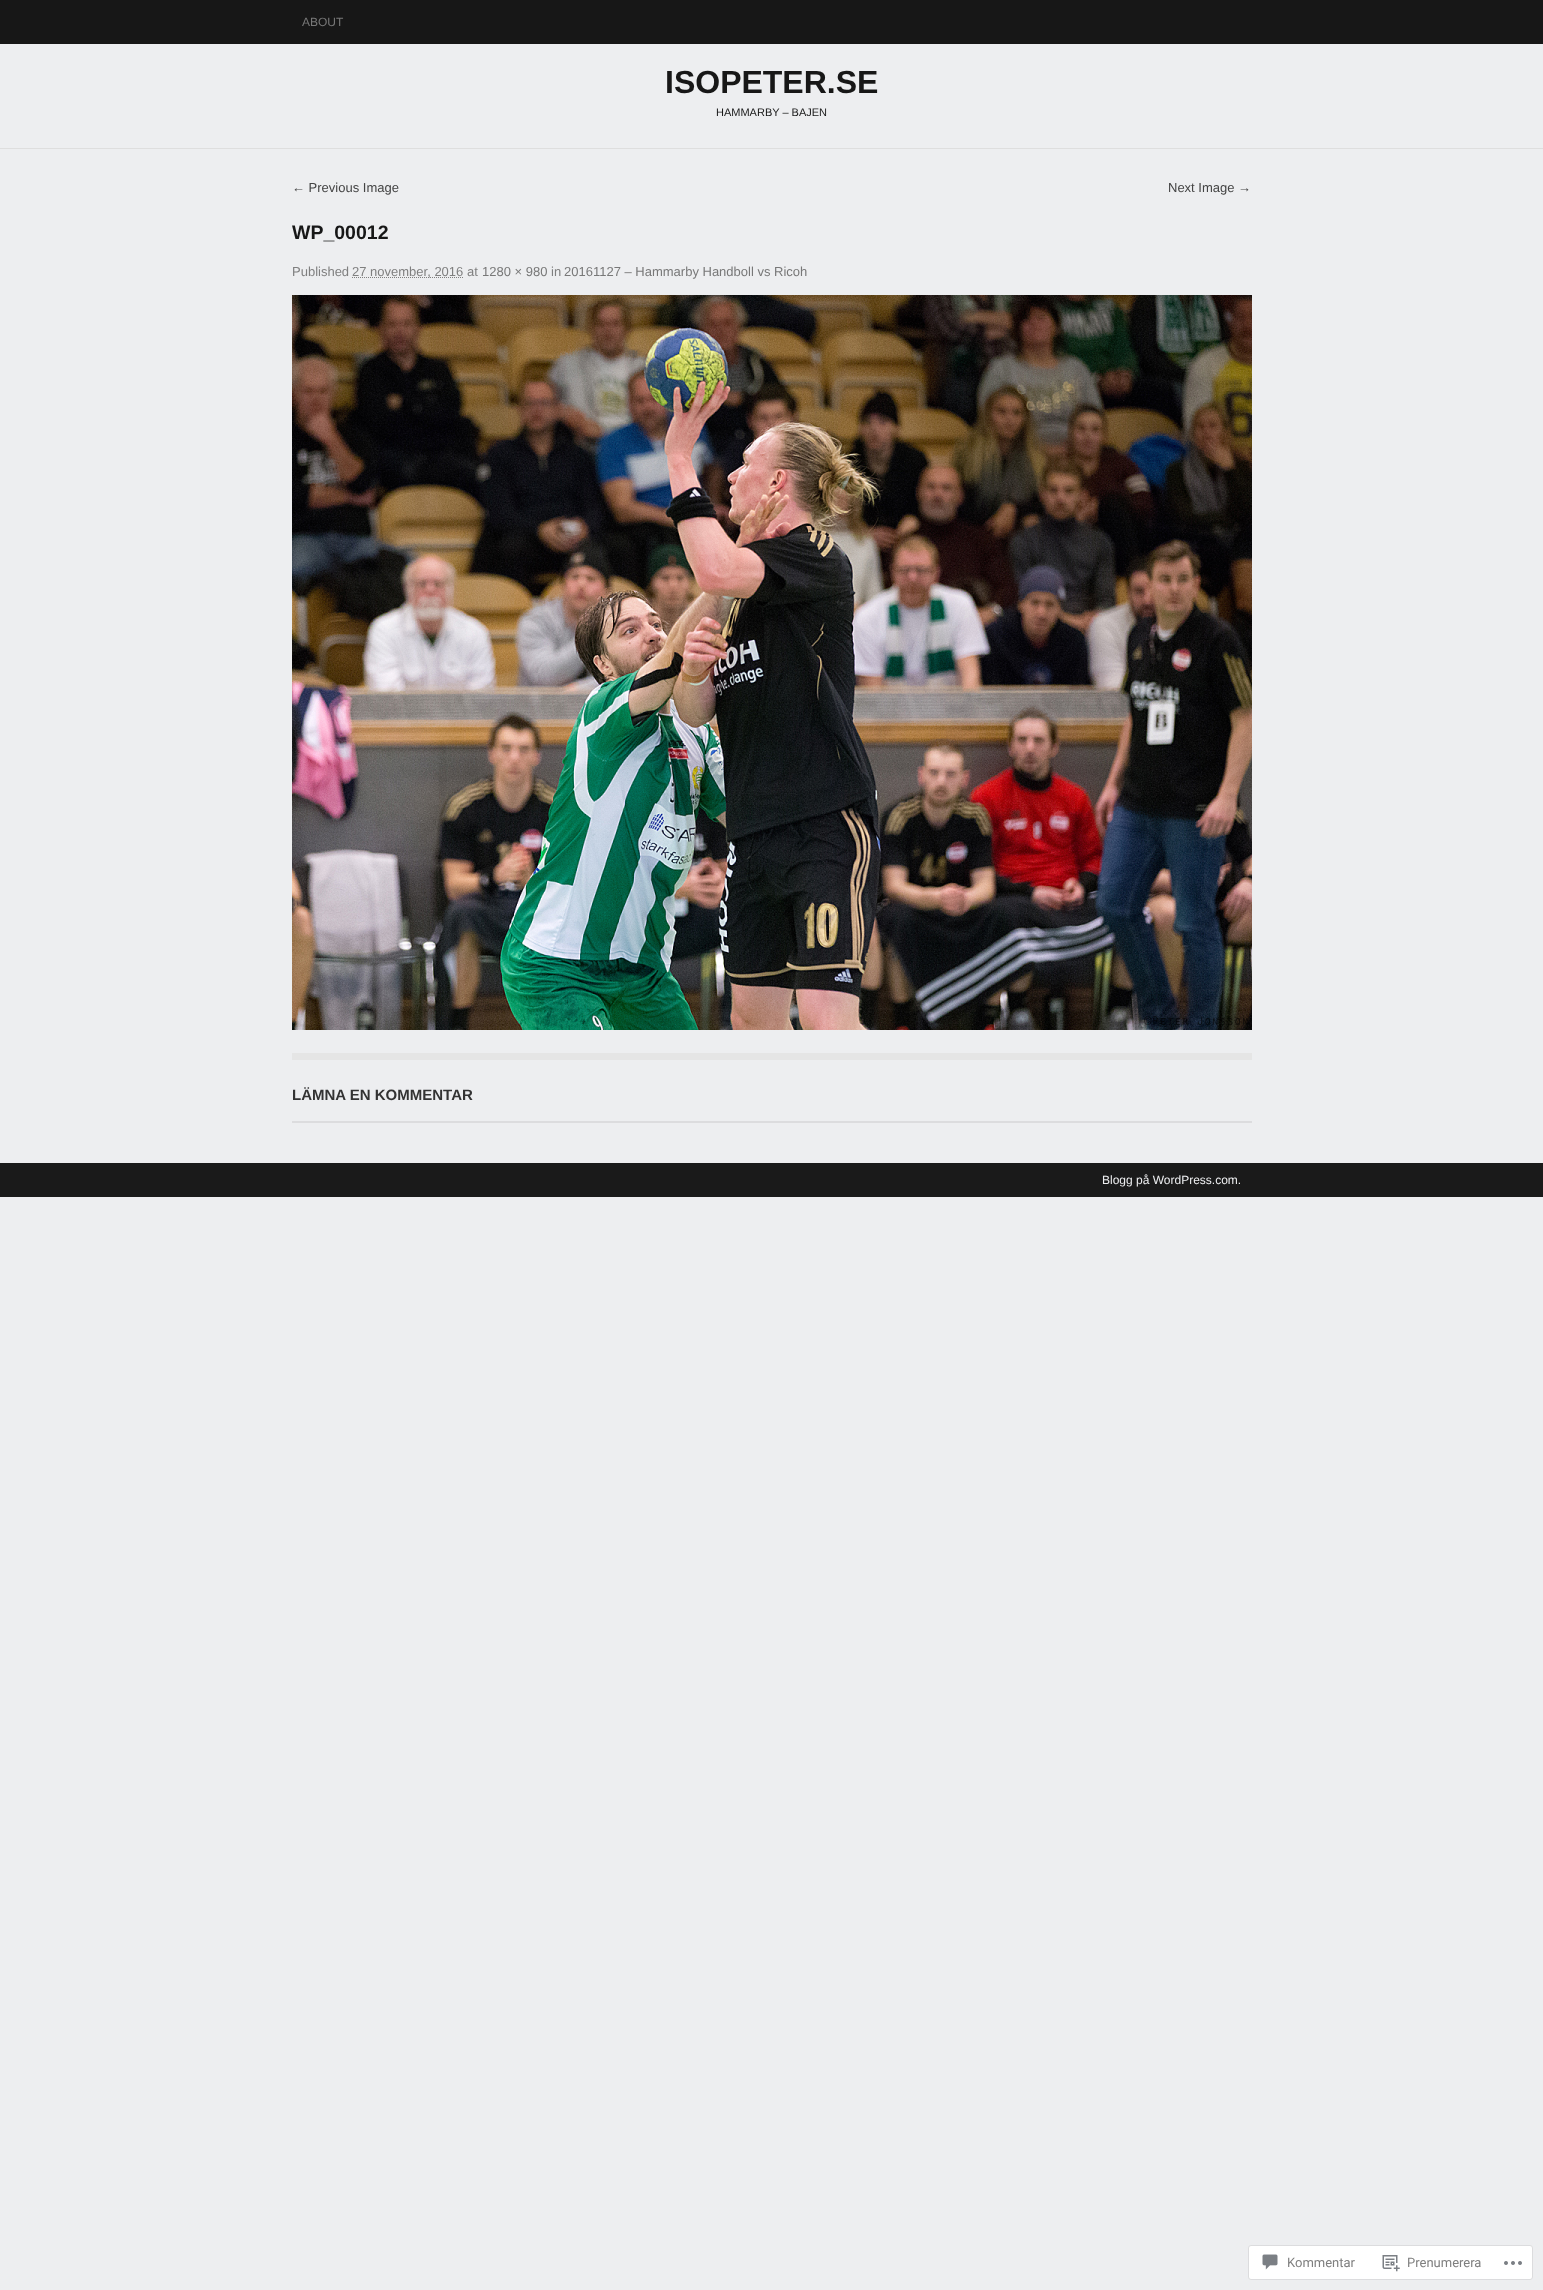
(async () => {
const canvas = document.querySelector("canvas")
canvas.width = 1543
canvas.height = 2290
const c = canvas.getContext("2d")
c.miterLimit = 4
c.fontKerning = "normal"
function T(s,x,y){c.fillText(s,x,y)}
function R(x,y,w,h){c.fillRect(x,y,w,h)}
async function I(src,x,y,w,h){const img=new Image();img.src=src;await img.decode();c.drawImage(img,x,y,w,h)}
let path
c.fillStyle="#edeef0"
R(0,0,1543,2290)
c.fillStyle="#171717"
R(0,0,1543,44)
c.font="12px Liberation Sans"
c.fillStyle="#787878"
T("ABOUT",302,26)
c.fillStyle="#dedede"
R(0,148,1543,1)
c.font="bold 32px Liberation Sans"
c.fillStyle="#171717"
T("ISOPETER.SE",665,93)
c.font="11px Liberation Sans"
T("HAMMARBY – BAJEN",716,116)
c.font="13px Liberation Sans"
c.fillStyle="#444"
T("← Previous Image",292,192)
T("Next Image →",1168,192)
c.font="bold 19.5px Liberation Sans"
c.fillStyle="#171717"
T("WP_00012",292,239)
c.font="13px Liberation Sans"
c.fillStyle="#7f7f7f"
T("Published",292,276)
path = new Path2D("M352 277.5h111.5")
c.strokeStyle="#7f7f7f"
c.setLineDash([1,1])
c.stroke(path)
T("27 november, 2016 at",352,276)
c.fillStyle="#787878"
T("1280 × 980",482,276)
c.fillStyle="#7f7f7f"
T("in",551,276)
c.fillStyle="#787878"
T("20161127 – Hammarby Handboll vs Ricoh",564,276)
await I("1.png",292,295,960,735)
c.fillStyle="#e5e5e5"
R(292,1053,960,7)
c.font="bold 15px Liberation Sans"
c.fillStyle="#333"
T("LÄMNA EN KOMMENTAR",292,1100)
c.fillStyle="#dcdcde"
R(292,1121,960,2)
c.fillStyle="#1a1a1a"
R(0,1163,1543,34)
c.font="12px Liberation Sans"
c.fillStyle="#edeef0"
T("Blogg på WordPress.com.",1102,1184)
c.fillStyle="#fff"
c.beginPath()
c.roundRect(1248.5,2245.5,284,34,2.5)
c.fill()
c.strokeStyle="#dcdcde"
c.setLineDash([])
c.stroke()
await I("2.png",1262,2254,16,16)
c.font="13px Roboto"
c.fillStyle="#7f7f7f"
T("Kommentar",1287,2267)
await I("3.png",1382,2255,18,17)
T("Prenumerera",1407,2267)
await I("4.png",1504,2261,18,4)
})()
